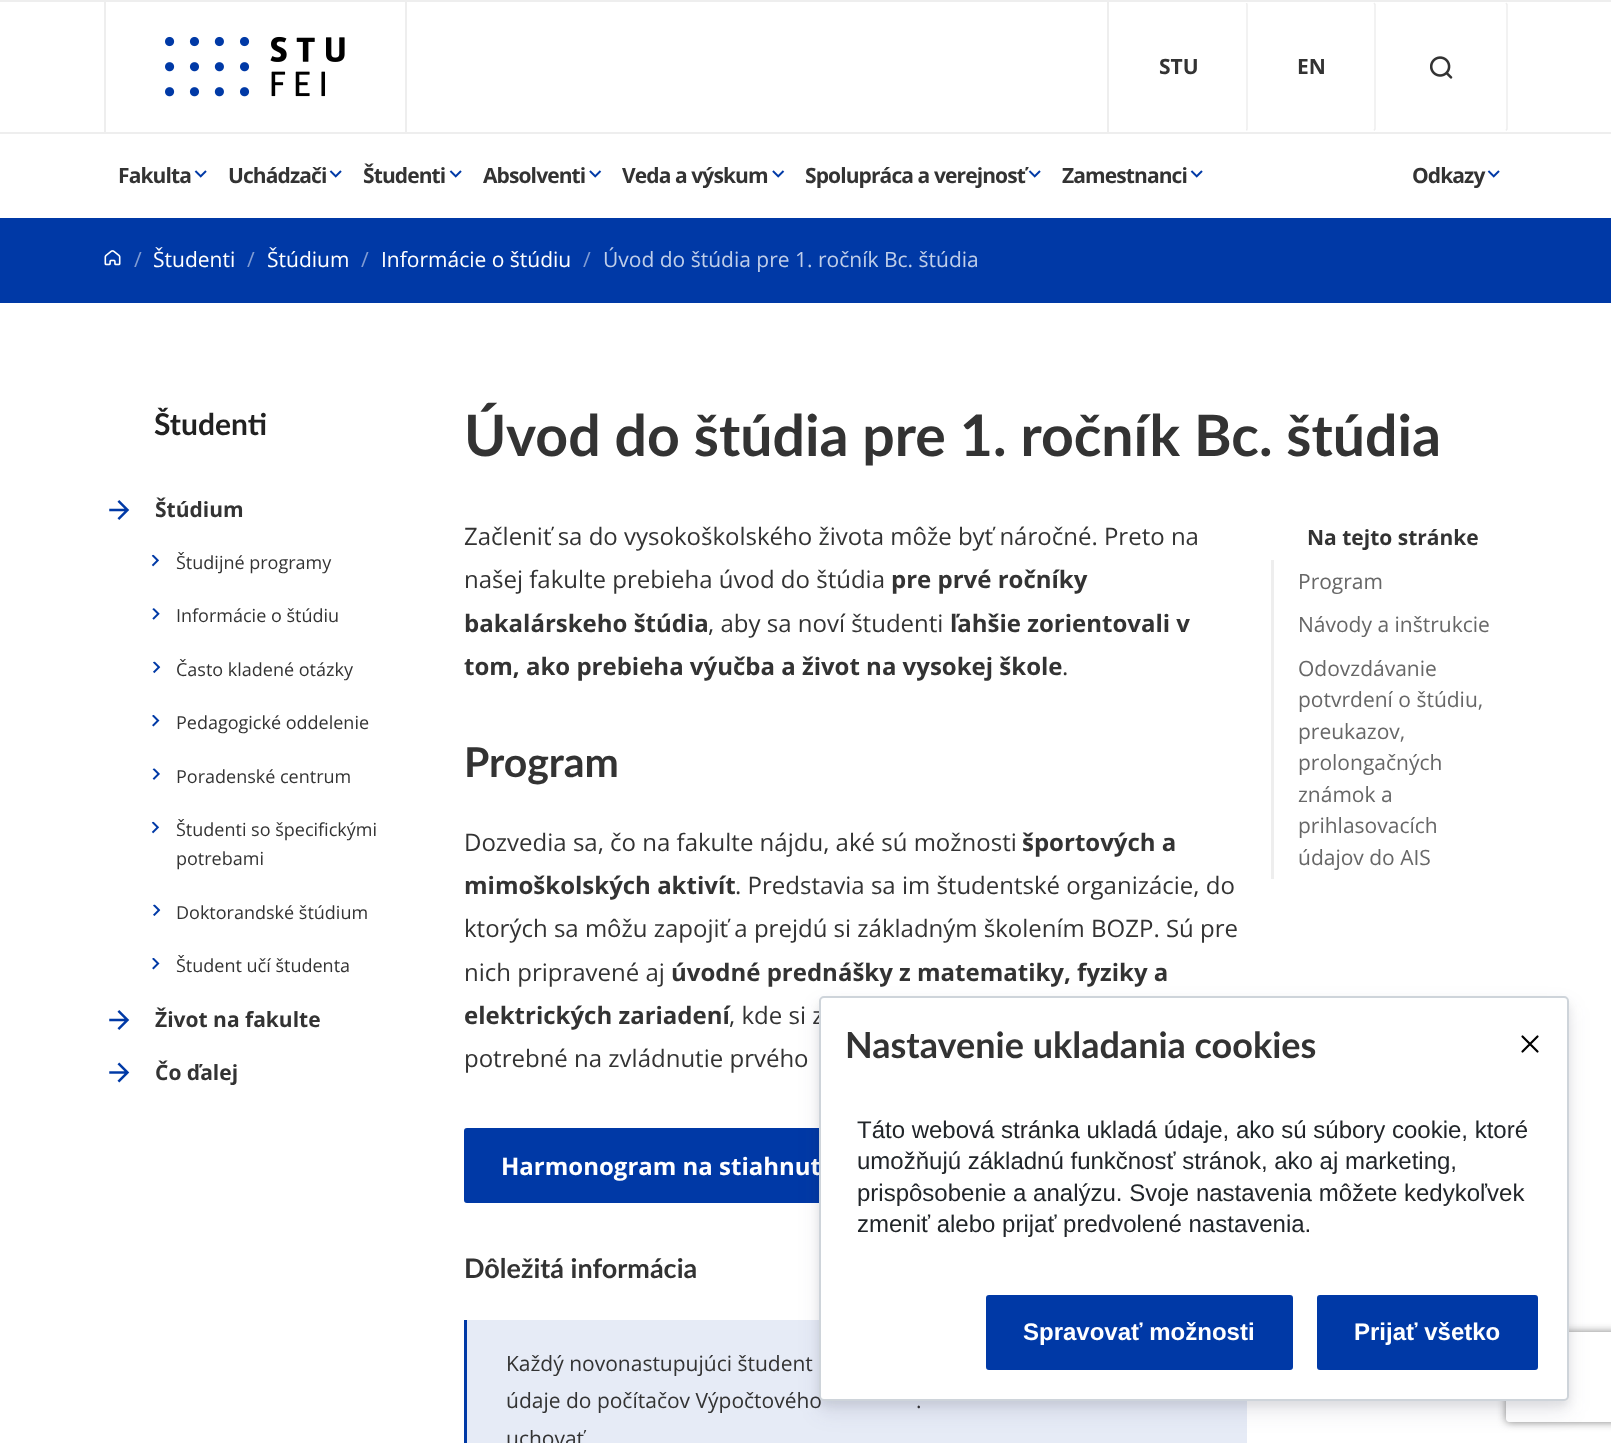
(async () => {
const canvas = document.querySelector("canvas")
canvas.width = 1611
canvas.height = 1443
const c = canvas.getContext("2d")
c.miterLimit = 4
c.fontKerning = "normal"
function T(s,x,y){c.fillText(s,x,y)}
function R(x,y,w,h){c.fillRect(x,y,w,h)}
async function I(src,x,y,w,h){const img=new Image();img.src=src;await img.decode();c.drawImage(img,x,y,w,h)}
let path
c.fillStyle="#eee"
R(0,0,1611,1443)
c.fillStyle="#fff"
R(0,2,1611,216)
c.fillStyle="#eee"
R(0,132,1611,2)
R(405,2,2,130)
R(104,2,2,130)
await I("1.png",165,36,180,61)
R(1107,2,2,130)
path = new Path2D("M1246.5 3l.5 1.5v124.5l-.5 1.5")
c.strokeStyle="#eee"
c.lineWidth=1.5
c.stroke(path)
c.font="bold 21px Open Sans"
c.fillStyle="#333"
T("STU",1159,74)
path = new Path2D("M1374 3l1 1.5v124.5l-1 1.5")
c.stroke(path)
T("EN",1297,74)
path = new Path2D("M1506 3l1 1.5v124.5l-1 1.5")
c.stroke(path)
await I("2.png",1430,56,23,23)
c.letterSpacing="-0.9px"
T("Fakulta",118,183)
await I("3.png",194,170,13,8)
T("Uchádzači",228,183)
await I("3.png",329,170,13,8)
T("Študenti",363,183)
await I("3.png",449,170,13,8)
T("Absolventi",483,183)
await I("4.png",589,170,13,8)
T("Veda a výskum",622,183)
await I("4.png",772,170,13,8)
T("Spolupráca a verejnosť",805,183)
await I("3.png",1028,170,13,8)
T("Zamestnanci",1062,183)
await I("3.png",1190,170,13,8)
T("Odkazy",1412,183)
await I("3.png",1487,170,13,8)
c.fillStyle="#0039a6"
R(0,218,1611,85)
await I("5.png",104,250,17,16)
c.letterSpacing="0px"
c.font="21px Open Sans"
c.fillStyle="#809cd3"
T("/",134,267)
c.fillStyle="#fff"
T("Študenti",153,267)
c.fillStyle="#809cd3"
T("/",247,267)
c.fillStyle="#fff"
T("Štúdium",267,267)
c.fillStyle="#809cd3"
T("/",361,267)
c.fillStyle="#fff"
T("Informácie o štúdiu",381,267)
c.fillStyle="#809cd3"
T("/",583,267)
c.fillStyle="#bfcee9"
T("Úvod do štúdia pre 1. ročník Bc. štúdia",603,267)
c.fillStyle="#fff"
R(0,303,1611,1140)
c.font="bold 30px Lato"
c.fillStyle="#212121"
T("Študenti",154,435)
await I("6.png",109,500,21,20)
c.font="bold 21px Open Sans"
c.fillStyle="#333"
T("Štúdium",155,517)
await I("7.png",151,554,8,13)
c.font="18px Open Sans"
T("Študijné programy",176,569)
await I("8.png",152,608,8,12)
T("Informácie o štúdiu",176,622)
await I("9.png",153,661,8,13)
T("Často kladené otázky",176,676)
await I("10.png",152,715,8,12)
T("Pedagogické oddelenie",176,729)
await I("11.png",152,768,8,12)
T("Poradenské centrum",176,783)
await I("12.png",151,821,9,13)
T("Študenti so špecifickými",176,836)
T("potrebami",176,865)
await I("13.png",153,904,8,12)
T("Doktorandské štúdium",176,919)
await I("14.png",152,958,8,12)
T("Študent učí študenta",176,972)
await I("6.png",109,1010,21,20)
c.font="bold 21px Open Sans"
T("Život na fakulte",155,1027)
await I("15.png",109,1062,21,21)
T("Čo ďalej",155,1080)
c.font="bold 57.2px Lato"
T("Úvod do štúdia pre 1. ročník Bc. štúdia",464,456)
c.font="24px Open Sans"
T("Začleniť sa do vysokoškolského života môže byť náročné. Preto na",464,545)
T("našej fakulte prebieha úvod do štúdia",464,588)
c.font="bold 24px Open Sans"
T("pre prvé ročníky",891,588)
T("bakalárskeho štúdia",464,632)
c.font="24px Open Sans"
T(", aby sa noví študenti",708,632)
c.font="bold 24px Open Sans"
T("ľahšie zorientovali v",950,632)
T("tom, ako prebieha výučba a život na vysokej škole",464,675)
c.font="24px Open Sans"
T(".",1062,675)
c.font="bold 41px Lato"
T("Program",464,777)
c.font="24px Open Sans"
T("Dozvedia sa, čo na fakulte nájdu, aké sú možnosti",464,851)
c.font="bold 24px Open Sans"
T("športových a",1022,851)
T("mimoškolských aktivít",464,894)
c.font="24px Open Sans"
T(". Predstavia sa im študentské organizácie, do",735,894)
T("ktorých sa môžu zapojiť a prejdú si základným školením BOZP. Sú pre",464,937)
T("nich pripravené aj",464,981)
c.font="bold 24px Open Sans"
T("úvodné prednášky z matematiky, fyziky a",671,981)
T("elektrických zariadení",464,1024)
c.font="24px Open Sans"
T(", kde si z",729,1024)
T("potrebné na zvládnutie prvého",464,1067)
c.fillStyle="#0039a6"
c.beginPath()
c.roundRect(465,1129,415,73,2)
c.fill()
c.strokeStyle="#0039a6"
c.lineWidth=2
c.stroke()
c.font="bold 24px Open Sans"
c.fillStyle="#fff"
T("Harmonogram na stiahnut",501,1175)
c.font="bold 27px Lato"
c.fillStyle="#333"
T("Dôležitá informácia",464,1278)
c.fillStyle="#e6ebf6"
R(467,1320,780,123)
c.fillStyle="#0039a6"
R(464,1320,3,123)
c.font="21px Open Sans"
c.fillStyle="#333"
T("Každý novonastupujúci študent",506,1371)
T("údaje do počítačov Výpočtového",506,1408)
T(".",916,1408)
T("uchovať.",506,1446)
c.font="bold 21px Open Sans"
T("Na tejto stránke",1307,545)
c.fillStyle="#eee"
R(1271,560,3,319)
c.font="21px Open Sans"
c.fillStyle="#676767"
T("Program",1298,589)
T("Návody a inštrukcie",1298,632)
T("Odovzdávanie",1298,676)
T("potvrdení o štúdiu,",1298,707)
T("preukazov,",1298,739)
T("prolongačných",1298,770)
T("známok a",1298,802)
T("prihlasovacích",1298,833)
T("údajov do AIS",1298,865)
c.fillStyle="#00000012"
c.filter="blur(4.5px)"
c.beginPath()
c.roundRect(819,1001,750,405,5)
c.fill()
c.filter="none"
c.fillStyle="#32325d1a"
c.filter="blur(10.5px)"
c.beginPath()
c.roundRect(819,1007,750,405,5)
c.fill()
c.filter="none"
c.save()
path = new Path2D("M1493 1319h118v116h-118zm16 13h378c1.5 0 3 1.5 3 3v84c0 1.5-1.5 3-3 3h-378c-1.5 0-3-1.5-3-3v-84c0-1.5 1.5-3 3-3z")
c.clip(path,"evenodd")
c.fillStyle="#808080"
c.filter="blur(4px)"
c.beginPath()
c.roundRect(1506,1332,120,90,3)
c.fill()
c.filter="none"
c.restore()
c.fillStyle="#fff"
c.beginPath()
c.roundRect(820,997,748,403,4)
c.fill()
c.strokeStyle="#ced4da"
c.stroke()
c.font="bold 36px Lato"
c.fillStyle="#333"
T("Nastavenie ukladania cookies",845,1058)
path = new Path2D("M1522.5 1036.5l15 15m-15 0l15-15")
c.strokeStyle="#000"
c.lineWidth=2.2
c.lineCap="round"
c.lineJoin="round"
c.stroke(path)
c.font="24px Liberation Sans"
c.fillStyle="#212529"
T("Táto webová stránka ukladá údaje, ako sú súbory cookie, ktoré",857,1138)
T("umožňujú základnú funkčnosť stránok, ako aj marketing,",857,1169)
T("prispôsobenie a analýzu. Svoje nastavenia môžete kedykoľvek",857,1201)
T("zmeniť alebo prijať predvolené nastavenia.",857,1232)
c.fillStyle="#0039a6"
c.beginPath()
c.roundRect(987,1296,305,73,2)
c.fill()
c.strokeStyle="#0039a6"
c.lineWidth=2
c.lineJoin="miter"
c.stroke()
c.font="bold 24px Liberation Sans"
c.fillStyle="#fff"
T("Spravovať možnosti",1023,1340)
c.fillStyle="#0039a6"
c.beginPath()
c.roundRect(1318,1296,219,73,2)
c.fill()
c.stroke()
c.fillStyle="#fff"
T("Prijať všetko",1354,1340)
})()
